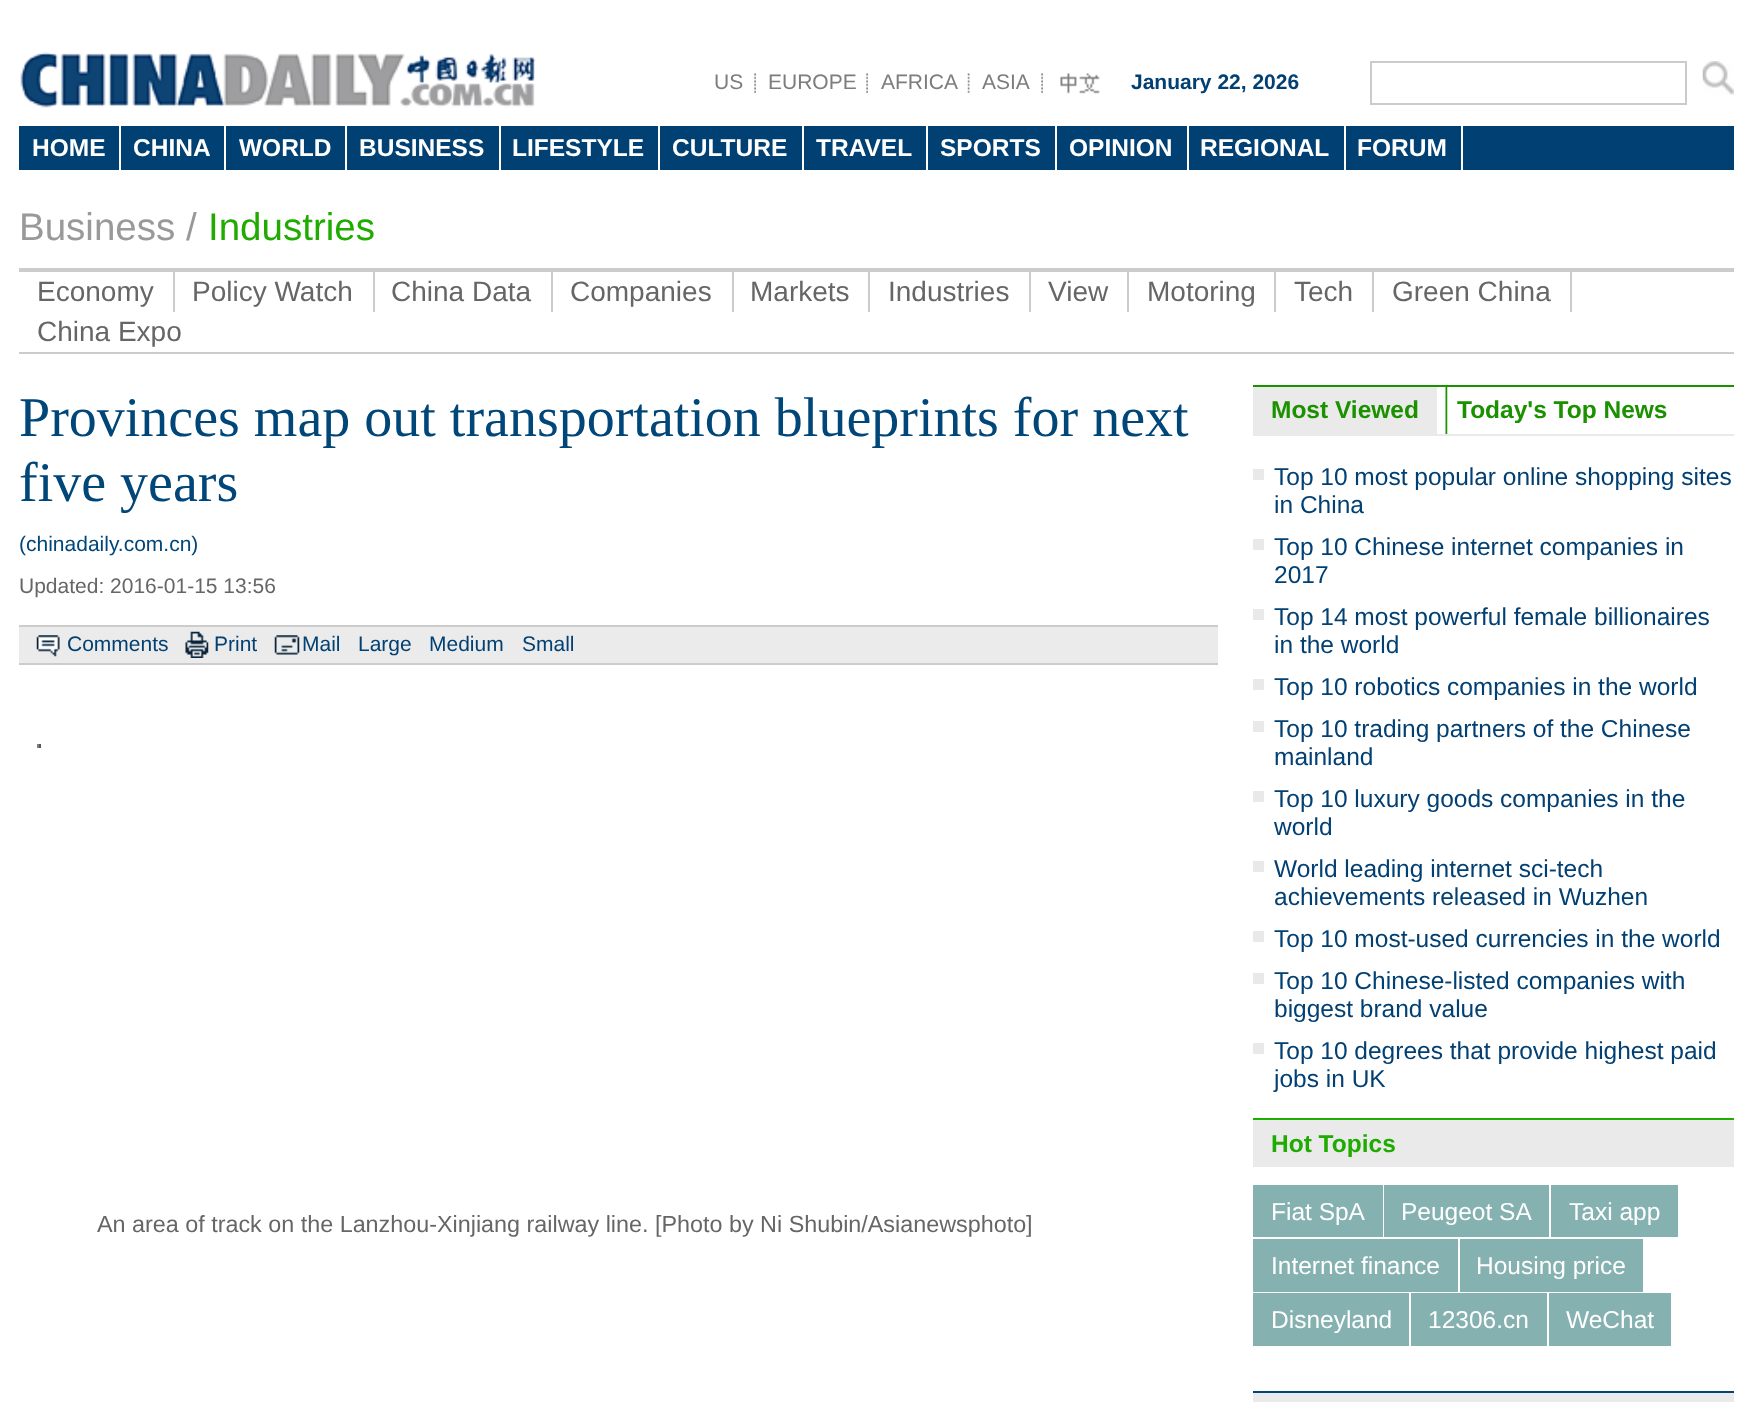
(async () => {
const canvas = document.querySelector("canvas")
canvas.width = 1753
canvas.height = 1402
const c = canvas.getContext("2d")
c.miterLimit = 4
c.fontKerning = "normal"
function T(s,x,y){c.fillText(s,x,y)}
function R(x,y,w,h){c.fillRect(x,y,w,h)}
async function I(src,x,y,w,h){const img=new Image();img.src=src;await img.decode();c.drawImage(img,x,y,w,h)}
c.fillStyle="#fff"
R(0,0,1753,1402)
await I("1.png",20,52,516,56)
await I("2.png",754,73,2,20)
c.font="21px Liberation Sans"
c.fillStyle="#7d7d7d"
T("US",714,89)
await I("2.png",866,73,2,20)
T("EUROPE",768,89)
await I("3.png",967,73,3,20)
T("AFRICA",881,89)
await I("2.png",1041,73,2,20)
T("ASIA",982,89)
await I("4.png",1060,73,40,21)
c.font="bold 21px Liberation Sans"
c.fillStyle="#024073"
T("January 22, 2026",1131,89)
c.strokeStyle="#cbcbcb"
c.lineWidth=2
c.strokeRect(1371,62,315,42)
await I("5.png",1702,61,32,34)
c.fillStyle="#014073"
R(19,126,1715,44)
c.fillStyle="#fff"
R(119,126,2,44)
c.font="bold 24.5px Liberation Sans"
T("HOME",32,156)
R(224,126,2,44)
T("CHINA",133,156)
R(345,126,2,44)
T("WORLD",239,156)
R(499,126,2,44)
T("BUSINESS",359,156)
R(658,126,2,44)
T("LIFESTYLE",512,156)
R(802,126,2,44)
T("CULTURE",672,156)
R(926,126,2,44)
T("TRAVEL",816,156)
R(1055,126,2,44)
T("SPORTS",940,156)
R(1187,126,2,44)
T("OPINION",1069,156)
R(1344,126,2,44)
T("REGIONAL",1200,156)
R(1461,126,2,44)
T("FORUM",1357,156)
c.font="38.5px Liberation Sans"
c.fillStyle="#999"
T("Business /",19,240)
c.fillStyle="#1fab00"
T("Industries",208,240)
c.fillStyle="#ccc"
R(19,268,1715,4)
R(19,352,1715,2)
R(173,271,2,41)
c.font="28px Liberation Sans"
c.fillStyle="#666"
T("Economy",37,301)
c.fillStyle="#ccc"
R(373,271,2,41)
c.fillStyle="#666"
T("Policy Watch",192,301)
c.fillStyle="#ccc"
R(551,271,2,41)
c.fillStyle="#666"
T("China Data",391,301)
c.fillStyle="#ccc"
R(732,271,2,41)
c.fillStyle="#666"
T("Companies",570,301)
c.fillStyle="#ccc"
R(868,271,2,41)
c.fillStyle="#666"
T("Markets",750,301)
c.fillStyle="#ccc"
R(1029,271,2,41)
c.fillStyle="#666"
T("Industries",888,301)
c.fillStyle="#ccc"
R(1127,271,2,41)
c.fillStyle="#666"
T("View",1048,301)
c.fillStyle="#ccc"
R(1274,271,2,41)
c.fillStyle="#666"
T("Motoring",1147,301)
c.fillStyle="#ccc"
R(1372,271,2,41)
c.fillStyle="#666"
T("Tech",1294,301)
c.fillStyle="#ccc"
R(1570,271,2,41)
c.fillStyle="#666"
T("Green China",1392,301)
T("China Expo",37,341)
c.font="56px Liberation Serif"
c.fillStyle="#004678"
T("Provinces map out transportation blueprints for next",19,436)
T("five years",19,501)
c.font="21px Liberation Sans"
T("(chinadaily.com.cn)",19,551)
c.fillStyle="#666"
T("Updated: 2016-01-15 13:56",19,593)
c.fillStyle="#ebebeb"
R(19,627,1199,36)
c.fillStyle="#ccc"
R(19,625,1199,2)
R(19,663,1199,2)
await I("6.png",36,635,24,22)
c.fillStyle="#024073"
T("Comments",67,651)
await I("7.png",185,631,24,27)
T("Print",214,651)
await I("8.png",274,635,26,20)
T("Mail",302,651)
T("Large",358,651)
T("Medium",429,651)
T("Small",522,651)
c.fillStyle="#555"
R(39,744,2,4)
R(37,746,4,2)
c.fillStyle="#808080"
R(37,744,2,4)
c.font="23.35px Liberation Sans"
c.fillStyle="#666"
T("An area of track on the Lanzhou-Xinjiang railway line. [Photo by Ni Shubin/Asianewsphoto]",97,1232)
await I("9.png",1445,387,3,47)
c.fillStyle="#1a9200"
R(1253,385,481,2)
c.fillStyle="#eaeaea"
R(1253,434,481,2)
R(1253,387,184,47)
c.font="bold 24.5px Liberation Sans"
c.fillStyle="#1b9100"
T("Most Viewed",1271,418)
T("Today's Top News",1457,418)
c.fillStyle="#e9e9e9"
R(1253,469,11,11)
c.font="24.5px Liberation Sans"
c.fillStyle="#024073"
T("Top 10 most popular online shopping sites",1274,485)
T("in China",1274,513)
c.fillStyle="#e9e9e9"
R(1253,539,11,11)
c.fillStyle="#024073"
T("Top 10 Chinese internet companies in",1274,555)
T("2017",1274,583)
c.fillStyle="#e9e9e9"
R(1253,609,11,11)
c.fillStyle="#024073"
T("Top 14 most powerful female billionaires",1274,625)
T("in the world",1274,653)
c.fillStyle="#e9e9e9"
R(1253,679,11,11)
c.fillStyle="#024073"
T("Top 10 robotics companies in the world",1274,695)
c.fillStyle="#e9e9e9"
R(1253,721,11,11)
c.fillStyle="#024073"
T("Top 10 trading partners of the Chinese",1274,737)
T("mainland",1274,765)
c.fillStyle="#e9e9e9"
R(1253,791,11,11)
c.fillStyle="#024073"
T("Top 10 luxury goods companies in the",1274,807)
T("world",1274,835)
c.fillStyle="#e9e9e9"
R(1253,861,11,11)
c.fillStyle="#024073"
T("World leading internet sci-tech",1274,877)
T("achievements released in Wuzhen",1274,905)
c.fillStyle="#e9e9e9"
R(1253,931,11,11)
c.fillStyle="#024073"
T("Top 10 most-used currencies in the world",1274,947)
c.fillStyle="#e9e9e9"
R(1253,973,11,11)
c.fillStyle="#024073"
T("Top 10 Chinese-listed companies with",1274,989)
T("biggest brand value",1274,1017)
c.fillStyle="#e9e9e9"
R(1253,1043,11,11)
c.fillStyle="#024073"
T("Top 10 degrees that provide highest paid",1274,1059)
T("jobs in UK",1274,1087)
c.fillStyle="#eaeaea"
R(1253,1120,481,47)
c.fillStyle="#1fad00"
R(1253,1118,481,2)
c.font="bold 24.5px Liberation Sans"
c.fillStyle="#1fab00"
T("Hot Topics",1271,1152)
c.fillStyle="#85b1b0"
R(1253,1185,130,52)
c.font="24.5px Liberation Sans"
c.fillStyle="#fff"
T("Fiat SpA",1271,1220)
c.fillStyle="#85b1b0"
R(1384,1185,165,52)
c.fillStyle="#fff"
T("Peugeot SA",1401,1220)
c.fillStyle="#85b1b0"
R(1551,1185,127,52)
c.fillStyle="#fff"
T("Taxi app",1569,1220)
c.fillStyle="#85b1b0"
R(1253,1239,205,53)
c.fillStyle="#fff"
T("Internet finance",1271,1274)
c.fillStyle="#85b1b0"
R(1460,1239,183,53)
c.fillStyle="#fff"
T("Housing price",1476,1274)
c.fillStyle="#85b1b0"
R(1253,1293,156,53)
c.fillStyle="#fff"
T("Disneyland",1271,1328)
c.fillStyle="#85b1b0"
R(1411,1293,136,53)
c.fillStyle="#fff"
T("12306.cn",1428,1328)
c.fillStyle="#85b1b0"
R(1549,1293,122,53)
c.fillStyle="#fff"
T("WeChat",1566,1328)
c.fillStyle="#eaeaea"
R(1253,1393,481,9)
c.fillStyle="#004677"
R(1253,1391,481,2)
})()
